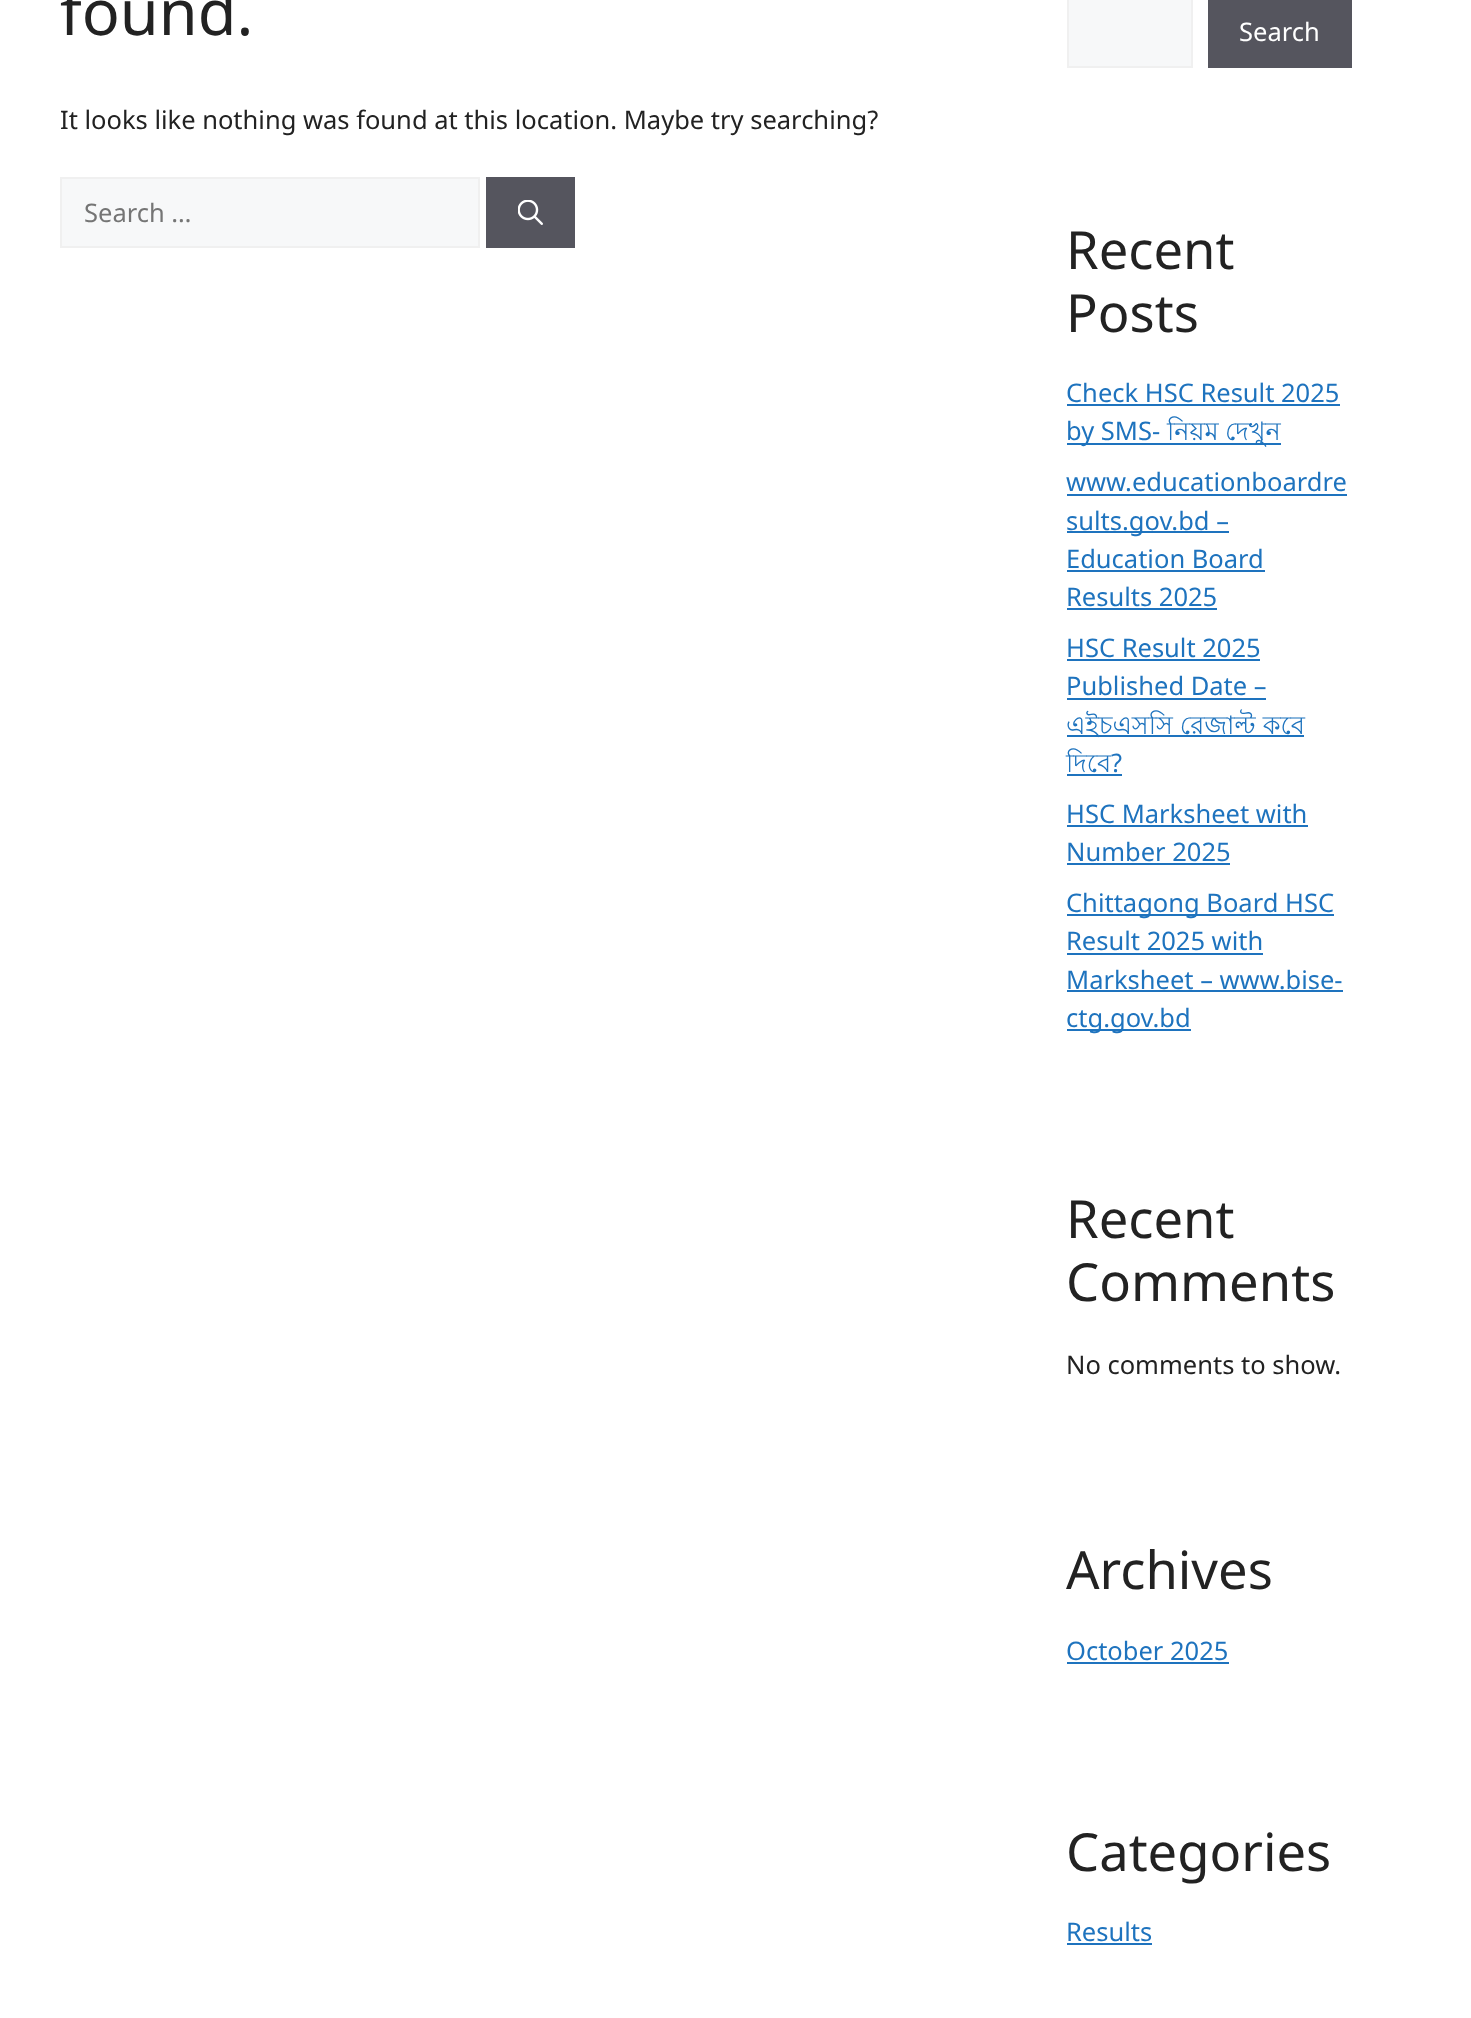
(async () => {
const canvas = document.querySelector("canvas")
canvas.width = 1471
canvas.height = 2018
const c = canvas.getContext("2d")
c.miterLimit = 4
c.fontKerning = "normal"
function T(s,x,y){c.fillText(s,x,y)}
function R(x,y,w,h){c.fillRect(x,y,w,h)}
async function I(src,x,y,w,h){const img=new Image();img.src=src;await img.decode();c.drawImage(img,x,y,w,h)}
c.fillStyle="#fff"
R(0,0,1471,2018)
c.font="63px Noto Sans"
c.fillStyle="#222"
T("found.",60,35)
c.font="25.5px Noto Sans"
T("It looks like nothing was found at this location. Maybe try searching?",60,129)
c.fillStyle="#f7f8f9"
c.beginPath()
c.rect(61,178,418,69)
c.fill()
c.strokeStyle="#f0f0f0"
c.lineWidth=2
c.stroke()
c.fillStyle="#757575"
T("Search …",84,222)
c.fillStyle="#55555e"
R(486,177,89,71)
await I("1.png",518,200,25,25)
c.fillStyle="#f7f8f9"
c.beginPath()
c.rect(1068,-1,124,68)
c.fill()
c.stroke()
c.fillStyle="#55555e"
R(1208,0,144,68)
c.fillStyle="#fff"
T("Search",1239,41)
c.font="52.5px Noto Sans"
c.fillStyle="#222"
T("Recent",1066,269)
T("Posts",1066,332)
c.font="25.5px Noto Sans"
c.fillStyle="#1e73be"
T("Check HSC Result 2025",1066,402)
R(1067,404,273,2)
R(1067,443,214,2)
T("by SMS-",1066,440)
c.font="25.5px Lohit Bengali"
T("নিয়ম",1167,440)
T("দেখুন",1225,440)
c.font="25.5px Noto Sans"
T("www.educationboardre",1066,491)
R(1067,494,280,2)
R(1067,531,162,2)
T("sults.gov.bd –",1066,530)
T("Education Board",1066,568)
R(1067,570,198,2)
T("Results 2025",1066,606)
R(1067,608,150,2)
T("HSC Result 2025",1066,657)
R(1067,659,193,2)
T("Published Date –",1066,695)
R(1067,698,199,2)
R(1067,735,237,2)
c.font="25.5px Lohit Bengali"
T("এইচএসসি রেজাল্ট কবে",1066,734)
T("দিবে",1066,772)
c.font="25.5px Noto Sans"
T("?",1111,772)
R(1067,774,55,2)
T("HSC Marksheet with",1066,823)
R(1067,825,241,2)
T("Number 2025",1066,861)
R(1067,863,163,2)
R(1067,914,267,2)
T("Chittagong Board HSC",1066,912)
T("Result 2025 with",1066,950)
R(1067,953,196,2)
T("Marksheet – www.bise-",1066,989)
R(1067,990,276,2)
R(1067,1029,124,2)
T("ctg.gov.bd",1066,1027)
c.font="52.5px Noto Sans"
c.fillStyle="#222"
T("Recent",1066,1238)
T("Comments",1066,1301)
c.font="25.5px Noto Sans"
T("No comments to show.",1066,1374)
c.font="52.5px Noto Sans"
T("Archives",1066,1589)
c.font="25.5px Noto Sans"
c.fillStyle="#1e73be"
T("October 2025",1066,1660)
R(1067,1662,162,2)
c.font="52.5px Noto Sans"
c.fillStyle="#222"
T("Categories",1066,1871)
c.font="25.5px Noto Sans"
c.fillStyle="#1e73be"
T("Results",1066,1941)
R(1067,1943,85,2)
})()
